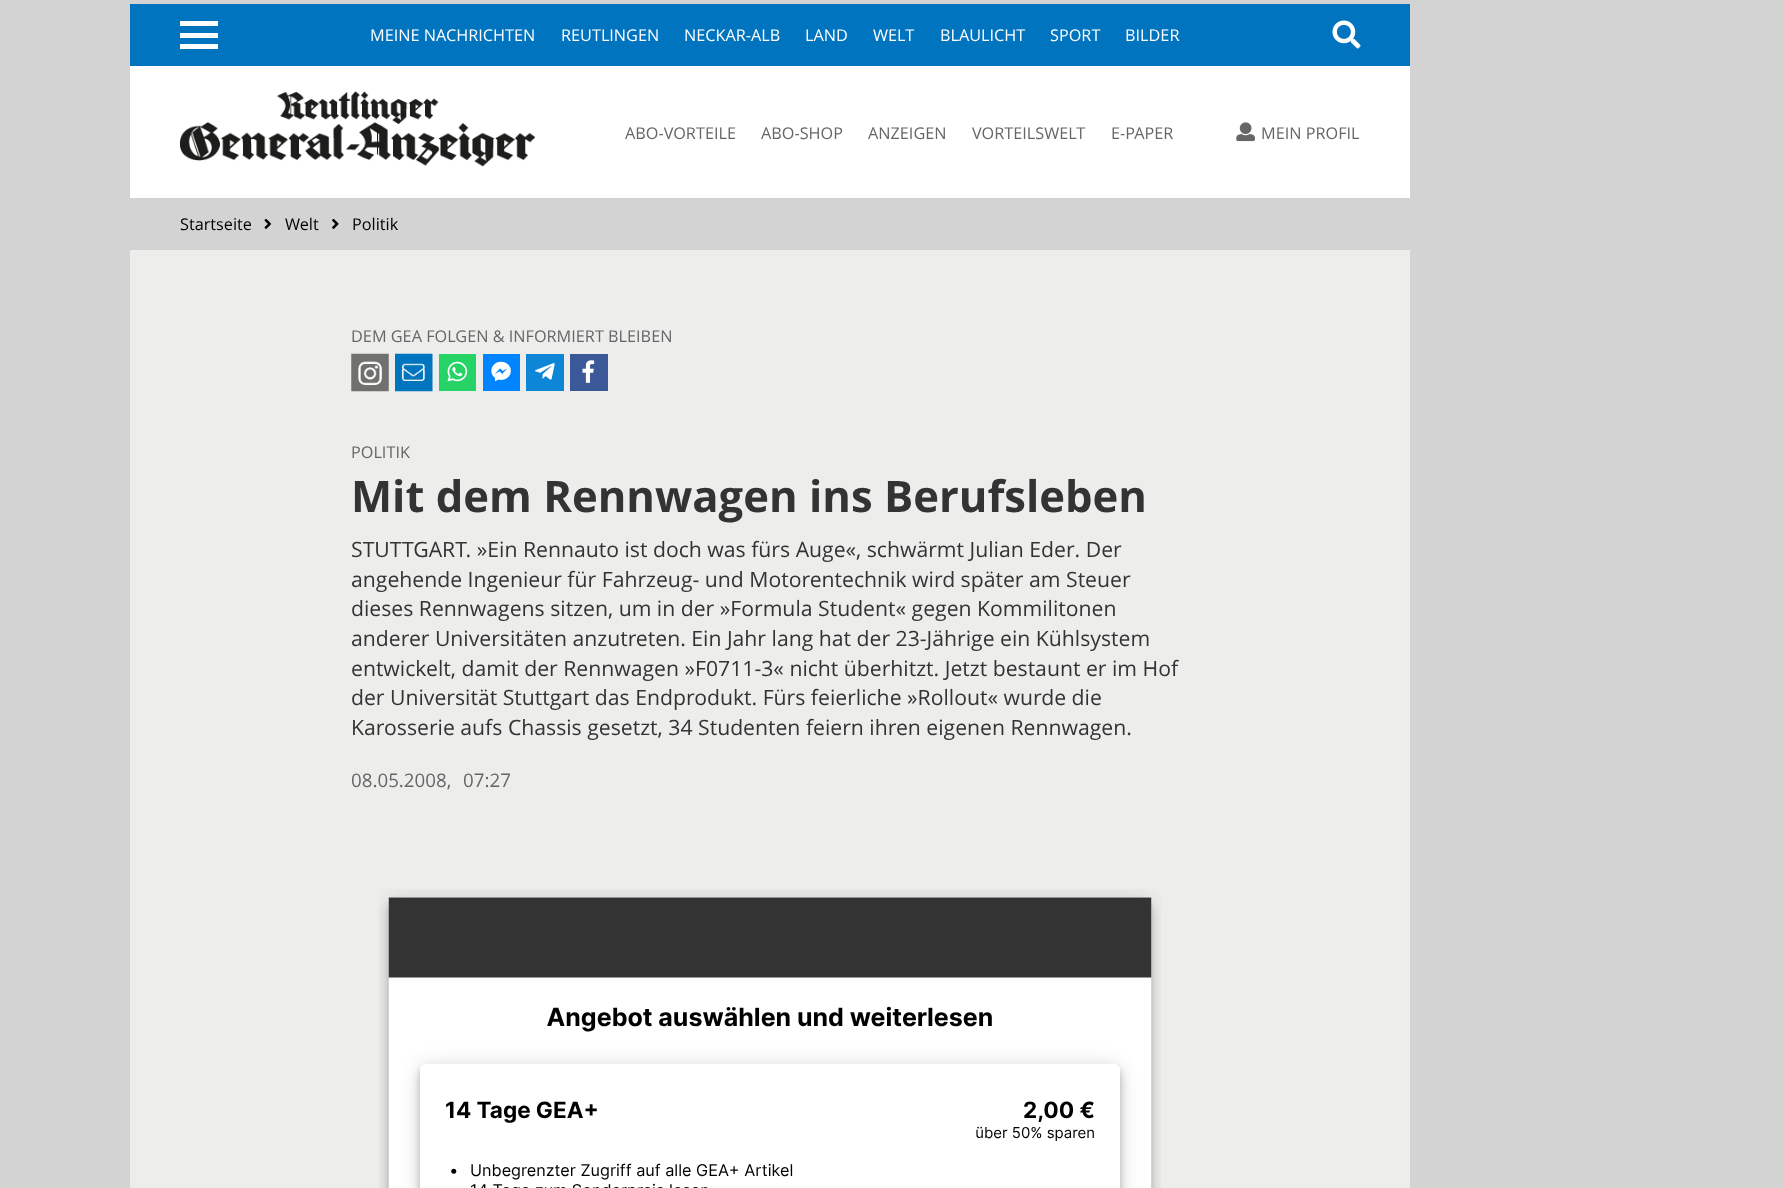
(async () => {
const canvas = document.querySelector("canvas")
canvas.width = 1784
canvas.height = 1188
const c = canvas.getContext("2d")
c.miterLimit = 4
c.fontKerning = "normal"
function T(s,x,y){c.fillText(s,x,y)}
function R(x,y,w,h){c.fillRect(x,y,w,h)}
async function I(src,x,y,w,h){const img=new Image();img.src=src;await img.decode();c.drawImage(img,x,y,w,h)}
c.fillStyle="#d3d3d4"
R(0,0,1784,1188)
c.fillStyle="#ededec"
R(130,250,1280,938)
c.fillStyle="#fff"
R(130,66,1280,132)
c.fillStyle="#0074be"
R(130,4,1280,62)
c.fillStyle="#fff"
R(180,33,38,5)
R(180,21,38,5)
R(180,44,38,5)
c.font="16.25px Open Sans"
T("MEINE NACHRICHTEN",370,41)
T("REUTLINGEN",561,41)
T("NECKAR-ALB",684,41)
T("LAND",805,41)
T("WELT",873,41)
T("BLAULICHT",940,41)
T("SPORT",1050,41)
T("BILDER",1125,41)
await I("1.png",1332,20,29,29)
await I("2.png",180,91,355,76)
c.fillStyle="#666"
T("ABO-VORTEILE",625,139)
T("ABO-SHOP",761,139)
T("ANZEIGEN",868,139)
T("VORTEILSWELT",972,139)
T("E-PAPER",1111,139)
await I("3.png",1236,122,19,20)
T("MEIN PROFIL",1261,139)
c.fillStyle="#000"
T("Startseite",180,230)
await I("4.png",264,218,7,11)
T("Welt",285,230)
await I("5.png",332,218,7,11)
T("Politik",352,230)
c.fillStyle="#666"
T("DEM GEA FOLGEN & INFORMIERT BLEIBEN",351,342)
await I("6.png",351,353,38,39)
await I("7.png",395,353,38,39)
c.fillStyle="#25d366"
R(439,354,37,37)
await I("8.png",447,361,21,21)
c.fillStyle="#0084ff"
R(483,354,37,37)
await I("9.png",491,361,20,21)
c.fillStyle="#0d86d7"
R(526,354,38,37)
await I("10.png",535,363,20,17)
c.fillStyle="#3b5998"
R(570,354,38,37)
await I("11.png",582,360,13,23)
c.fillStyle="#666"
T("POLITIK",351,458)
c.font="bold 43.6px Open Sans"
c.fillStyle="#333"
T("Mit dem Rennwagen ins Berufsleben",351,512)
c.font="21.2px Open Sans"
T("STUTTGART. »Ein Rennauto ist doch was fürs Auge«, schwärmt Julian Eder. Der",351,557)
T("angehende Ingenieur für Fahrzeug- und Motorentechnik wird später am Steuer",351,587)
T("dieses Rennwagens sitzen, um in der »Formula Student« gegen Kommilitonen",351,616)
T("anderer Universitäten anzutreten. Ein Jahr lang hat der 23-Jährige ein Kühlsystem",351,646)
T("entwickelt, damit der Rennwagen »F0711-3« nicht überhitzt. Jetzt bestaunt er im Hof",351,676)
T("der Universität Stuttgart das Endprodukt. Fürs feierliche »Rollout« wurde die",351,705)
T("Karosserie aufs Chassis gesetzt, 34 Studenten feiern ihren eigenen Rennwagen.",351,735)
c.font="18.75px Open Sans"
c.fillStyle="#666"
T("08.05.2008,",351,787)
T("07:27",463,787)
await I("12.png",379,889,782,299)
})()
